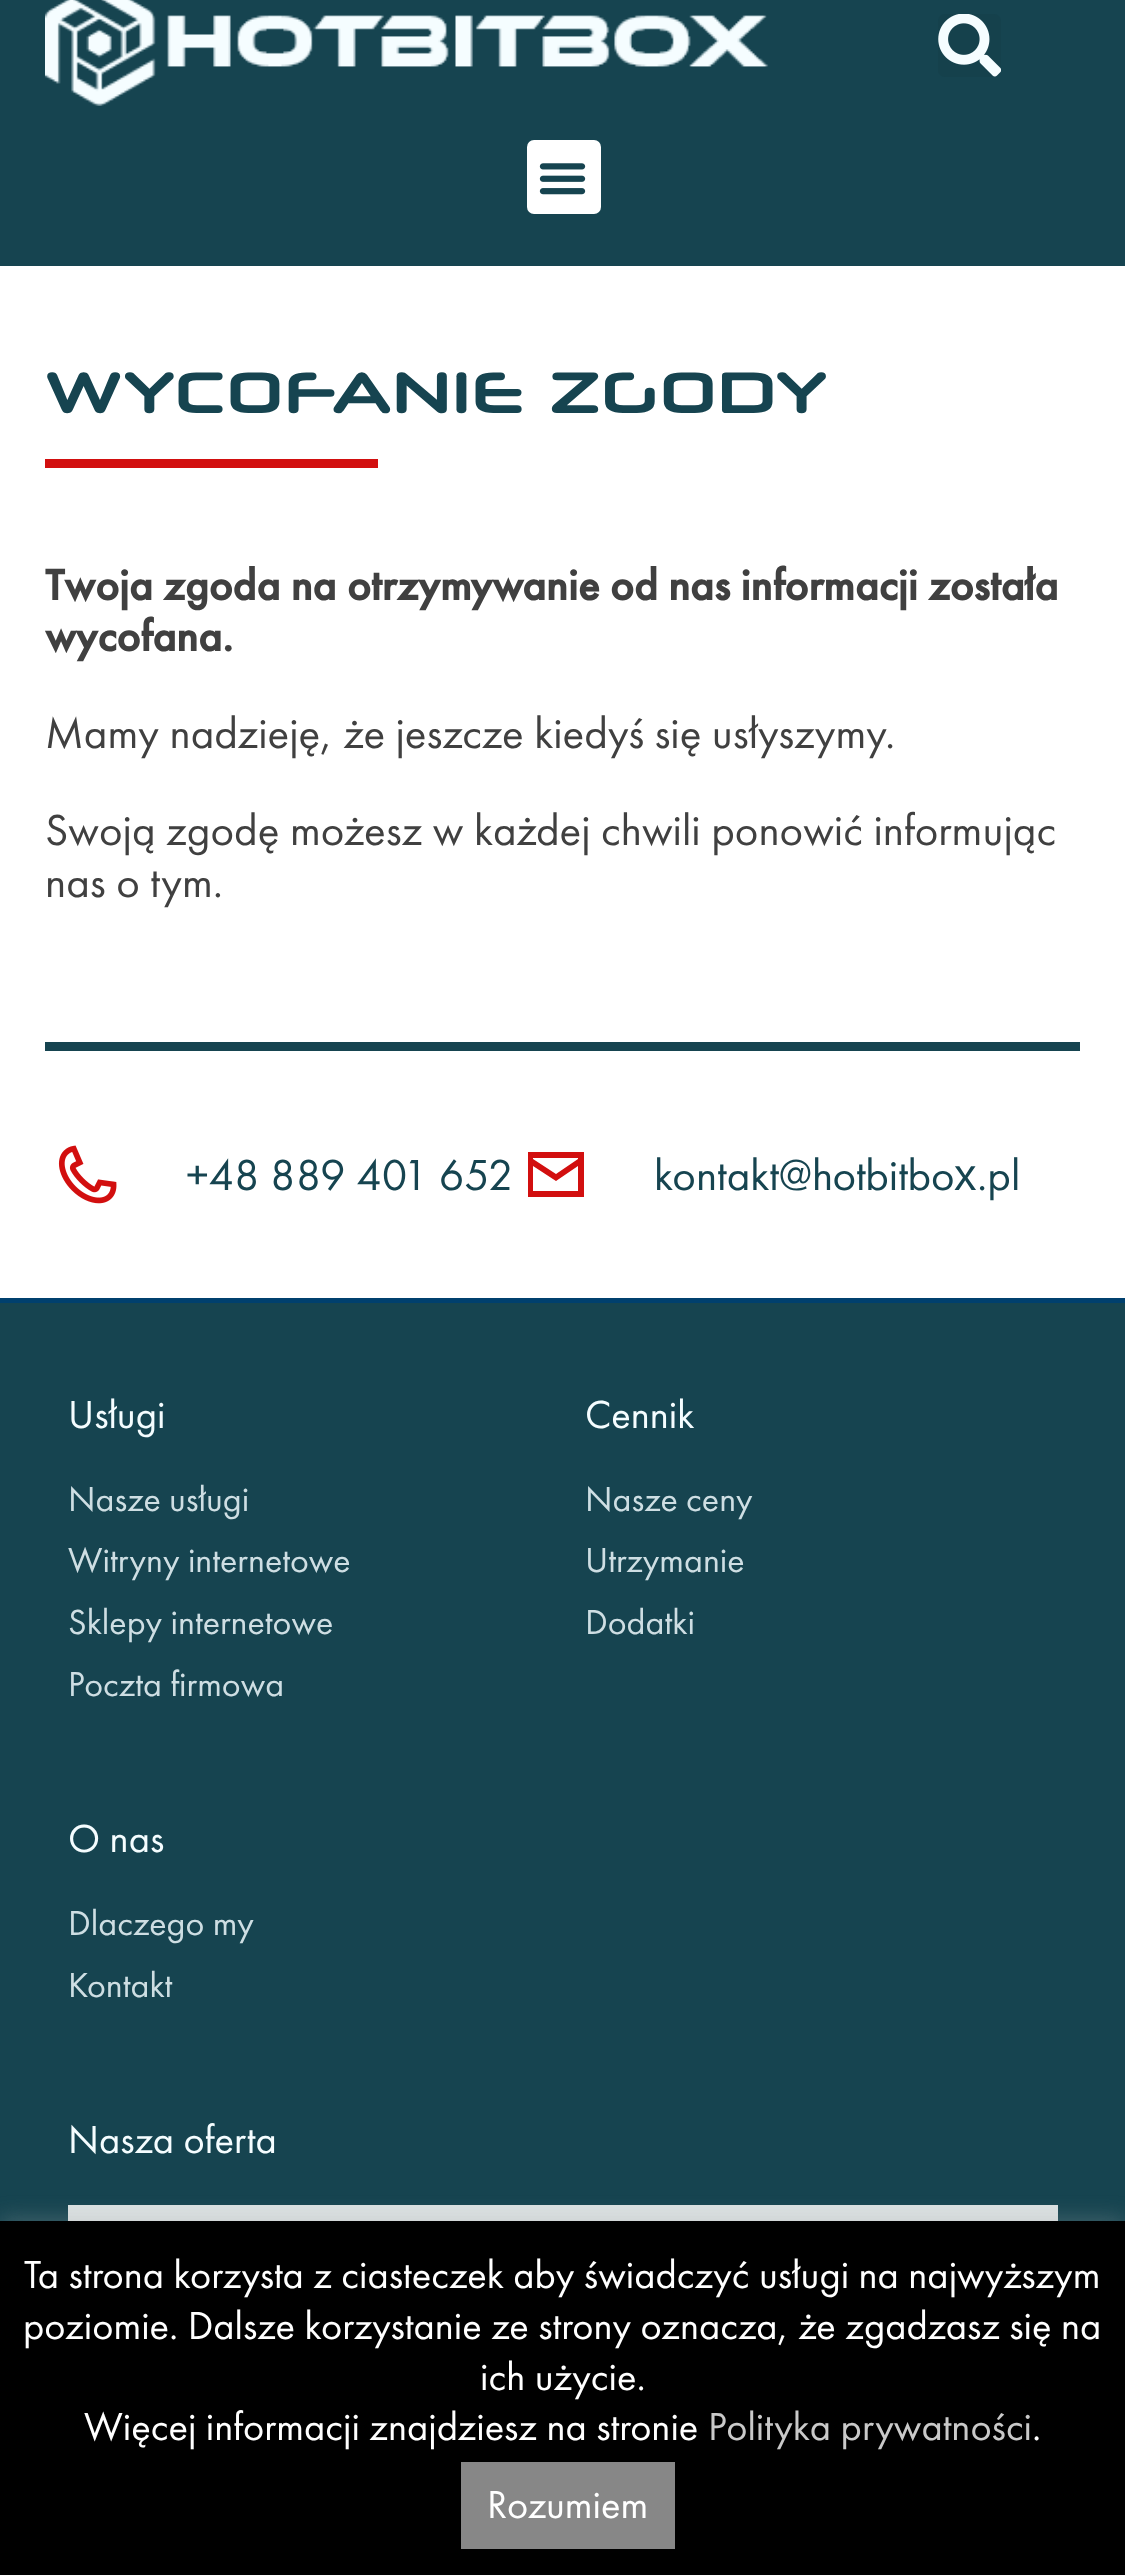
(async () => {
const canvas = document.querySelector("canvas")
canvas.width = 1125
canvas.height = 2575
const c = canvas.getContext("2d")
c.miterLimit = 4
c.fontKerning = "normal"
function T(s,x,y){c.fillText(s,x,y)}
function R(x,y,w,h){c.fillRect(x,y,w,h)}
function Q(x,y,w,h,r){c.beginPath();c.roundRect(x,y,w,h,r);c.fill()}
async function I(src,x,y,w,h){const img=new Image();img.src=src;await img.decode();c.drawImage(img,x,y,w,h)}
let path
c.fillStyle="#fff"
R(0,0,1125,2575)
c.fillStyle="#164450"
R(0,0,1125,266)
await I("1.png",45,0,724,106)
c.fillStyle="#15414c"
Q(938,14,63,63,7)
await I("2.png",938,14,63,63)
c.fillStyle="#fff"
Q(527,140,74,74,7)
await I("3.png",539,163,47,32)
c.font="bold 58.5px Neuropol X"
c.fillStyle="#164450"
T("WYCOFANIE ZGODY",45,413)
c.fillStyle="#d20f0f"
R(45,459,333,9)
c.font="bold 45px Futura PT"
c.fillStyle="#404040"
T("Twoja zgoda na otrzymywanie od nas informacji została",45,600)
T("wycofana.",45,651)
c.font="45px Futura PT"
T("Mamy nadzieję, że jeszcze kiedyś się usłyszymy.",45,748)
T("Swoją zgodę możesz w każdej chwili ponowić informując",45,845)
T("nas o tym.",45,897)
c.fillStyle="#164450"
R(45,1042,1035,9)
await I("4.png",58,1145,59,59)
T("+48 889 401 652",186,1190)
c.fillStyle="#d20f0f"
path = new Path2D("M528 1152v45h56v-45zm50 6v1l-22 15l-23-15v-1zm-45 33v-25l23 15l22-15v25z")
c.fill(path)
c.fillStyle="#164450"
T("kontakt@hotbitbo",654,1190)
c.font="45px Liberation Sans"
T("x",954,1190)
c.font="45px Futura PT"
T(".pl",977,1190)
R(0,1303,1125,918)
c.fillStyle="#00406e"
R(0,1298,1125,5)
c.font="40.5px Futura PT"
c.fillStyle="#f5fdff"
T("Usługi",68,1428)
c.font="36px Futura PT"
c.fillStyle="#cedee3"
T("Nasze usługi",68,1511)
T("Witryny internetowe",68,1572)
T("Sklepy internetowe",68,1634)
T("Poczta firmowa",68,1696)
c.font="40.5px Futura PT"
c.fillStyle="#f5fdff"
T("Cennik",585,1428)
c.font="36px Futura PT"
c.fillStyle="#cedee3"
T("Nasze ceny",585,1511)
T("Utrzymanie",585,1572)
T("Dodatki",585,1634)
c.font="40.5px Futura PT"
c.fillStyle="#f5fdff"
T("O nas",68,1852)
c.font="36px Futura PT"
c.fillStyle="#cedee3"
T("Dlaczego my",68,1935)
T("Kontakt",68,1997)
c.font="40.5px Futura PT"
c.fillStyle="#f5fdff"
T("Nasza oferta",68,2153)
c.fillStyle="#dbe1e2"
R(68,2205,990,16)
c.fillStyle="#acabab4d"
c.filter="blur(11px)"
c.beginPath()
c.rect(0,2219,1125,355)
c.fill()
c.filter="none"
c.fillStyle="#000"
R(0,2221,1125,354)
c.fillStyle="#fff"
T("Ta strona korzysta z ciasteczek aby świadczyć usługi na najwyższym",24,2288)
T("poziomie. Dalsze korzystanie ze strony oznacza, że zgadzasz się na",23,2339)
T("ich użycie.",480,2390)
T("Więcej informacji znajdziesz na stronie",84,2440)
c.fillStyle="#c9c9c9"
T("Polityka prywatności",708,2440)
c.fillStyle="#fff"
T(".",1032,2440)
c.fillStyle="#878787"
R(461,2462,214,87)
c.fillStyle="#fff"
T("Rozumiem",487,2518)
})()
